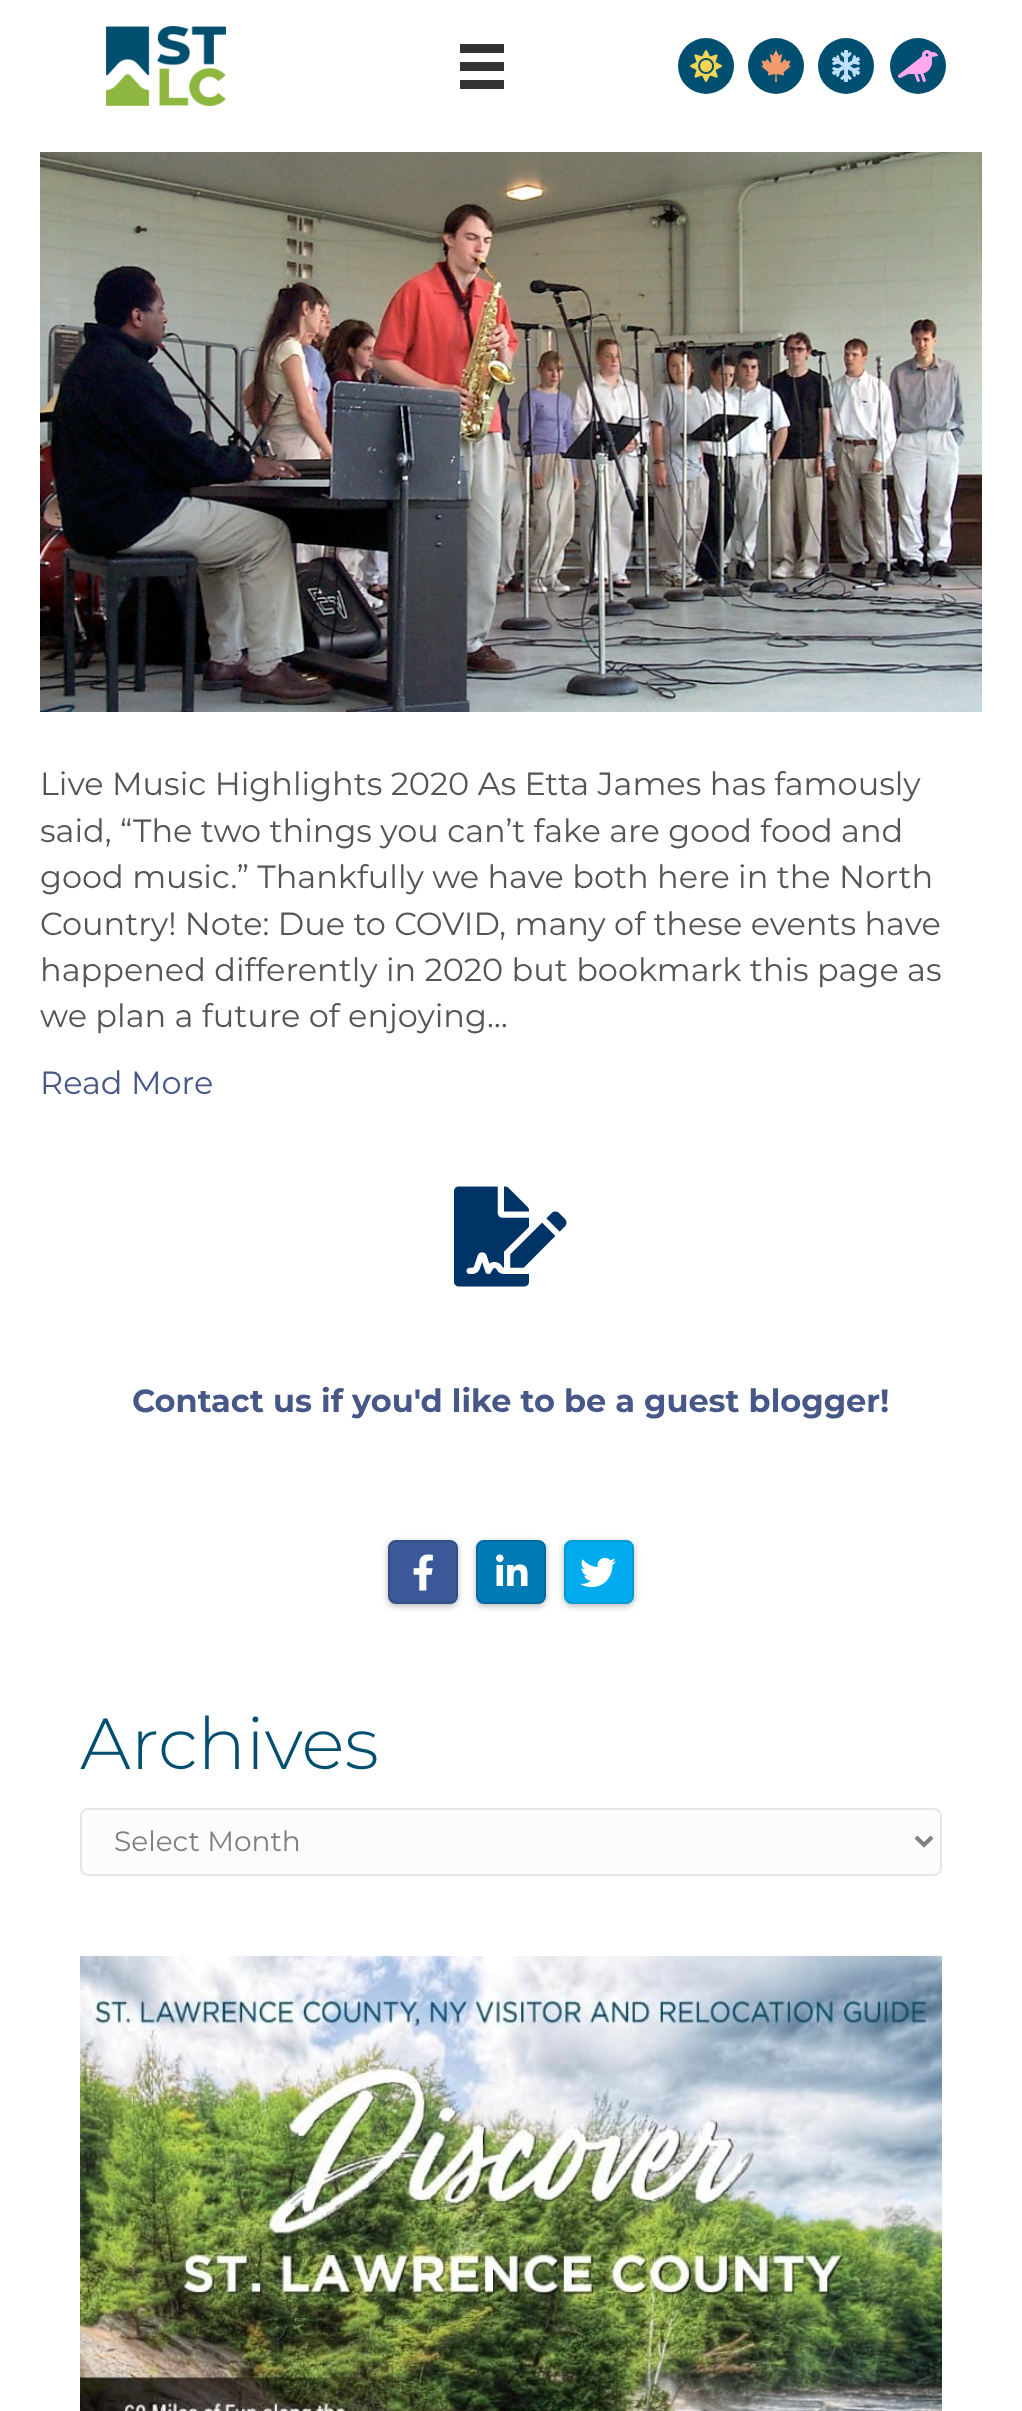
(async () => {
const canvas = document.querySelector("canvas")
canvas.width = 1022
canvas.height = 2411
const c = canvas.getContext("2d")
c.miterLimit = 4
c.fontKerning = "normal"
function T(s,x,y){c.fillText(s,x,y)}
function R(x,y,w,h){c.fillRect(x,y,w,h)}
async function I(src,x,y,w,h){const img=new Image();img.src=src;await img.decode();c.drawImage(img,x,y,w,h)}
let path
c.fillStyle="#fff"
R(0,0,1022,2411)
await I("1.png",106,26,120,80)
c.fillStyle="#333"
R(460,44,44,9)
R(460,62,44,9)
R(460,80,44,9)
c.fillStyle="#004f71"
c.beginPath()
c.arc(706,66,28,0,7)
c.fill()
await I("2.png",690,50,32,32)
c.beginPath()
c.arc(776,66,28,0,7)
c.fill()
await I("3.png",761,50,30,32)
c.beginPath()
c.arc(846,66,28,0,7)
c.fill()
await I("4.png",832,50,28,32)
c.beginPath()
c.arc(918,66,28,0,7)
c.fill()
await I("5.png",898,50,40,32)
await I("6.png",40,152,942,560)
c.font="32px Montserrat"
c.fillStyle="#555"
T("Live Music Highlights 2020 As Etta James has famously",40,795)
T("said, “The two things you can’t fake are good food and",40,842)
T("good music.” Thankfully we have both here in the North",40,888)
T("Country! Note: Due to COVID, many of these events have",40,935)
T("happened differently in 2020 but bookmark this page as",40,981)
T("we plan a future of enjoying…",40,1027)
c.fillStyle="#475888"
T("Read More",40,1094)
await I("7.png",454,1186,113,101)
c.font="bold 32px Montserrat"
T("Contact us if you'd like to be a guest blogger!",132,1412)
c.fillStyle="#00000026"
c.filter="blur(3px)"
c.beginPath()
c.roundRect(388,1542,70,64,8)
c.fill()
c.filter="none"
c.filter="blur(3px)"
c.beginPath()
c.roundRect(388,1542,70,64,8)
c.fill()
c.filter="none"
c.fillStyle="#3b5998"
c.beginPath()
c.roundRect(389,1541,68,62,7)
c.fill()
c.strokeStyle="#344e86"
c.lineWidth=2
c.stroke()
await I("8.png",413,1554,20,37)
c.fillStyle="#00000026"
c.filter="blur(3px)"
c.beginPath()
c.roundRect(476,1542,70,64,8)
c.fill()
c.filter="none"
c.filter="blur(3px)"
c.beginPath()
c.roundRect(476,1542,70,64,8)
c.fill()
c.filter="none"
c.fillStyle="#007bb6"
c.beginPath()
c.roundRect(477,1541,68,62,7)
c.fill()
c.strokeStyle="#006a9d"
c.stroke()
await I("9.png",496,1554,32,32)
c.fillStyle="#00000026"
c.filter="blur(3px)"
c.beginPath()
c.roundRect(564,1542,70,64,8)
c.fill()
c.filter="none"
c.filter="blur(3px)"
c.beginPath()
c.roundRect(564,1542,70,64,8)
c.fill()
c.filter="none"
c.fillStyle="#00aced"
c.beginPath()
c.roundRect(565,1541,68,62,7)
c.fill()
c.strokeStyle="#0099d4"
c.stroke()
await I("10.png",580,1557,36,31)
c.font="300 72px Montserrat"
c.fillStyle="#004f71"
T("Archives",80,1769)
c.fillStyle="#fcfcfc"
c.beginPath()
c.roundRect(81,1809,860,66,7)
c.fill()
c.strokeStyle="#e6e6e6"
c.stroke()
path = new Path2D("M916 1837l8 8l8-8")
c.strokeStyle="#808080"
c.lineWidth=4
c.stroke(path)
c.font="28px Montserrat"
c.fillStyle="#808080"
T("Select Month",114,1851)
await I("11.png",80,1956,862,455)
})()
